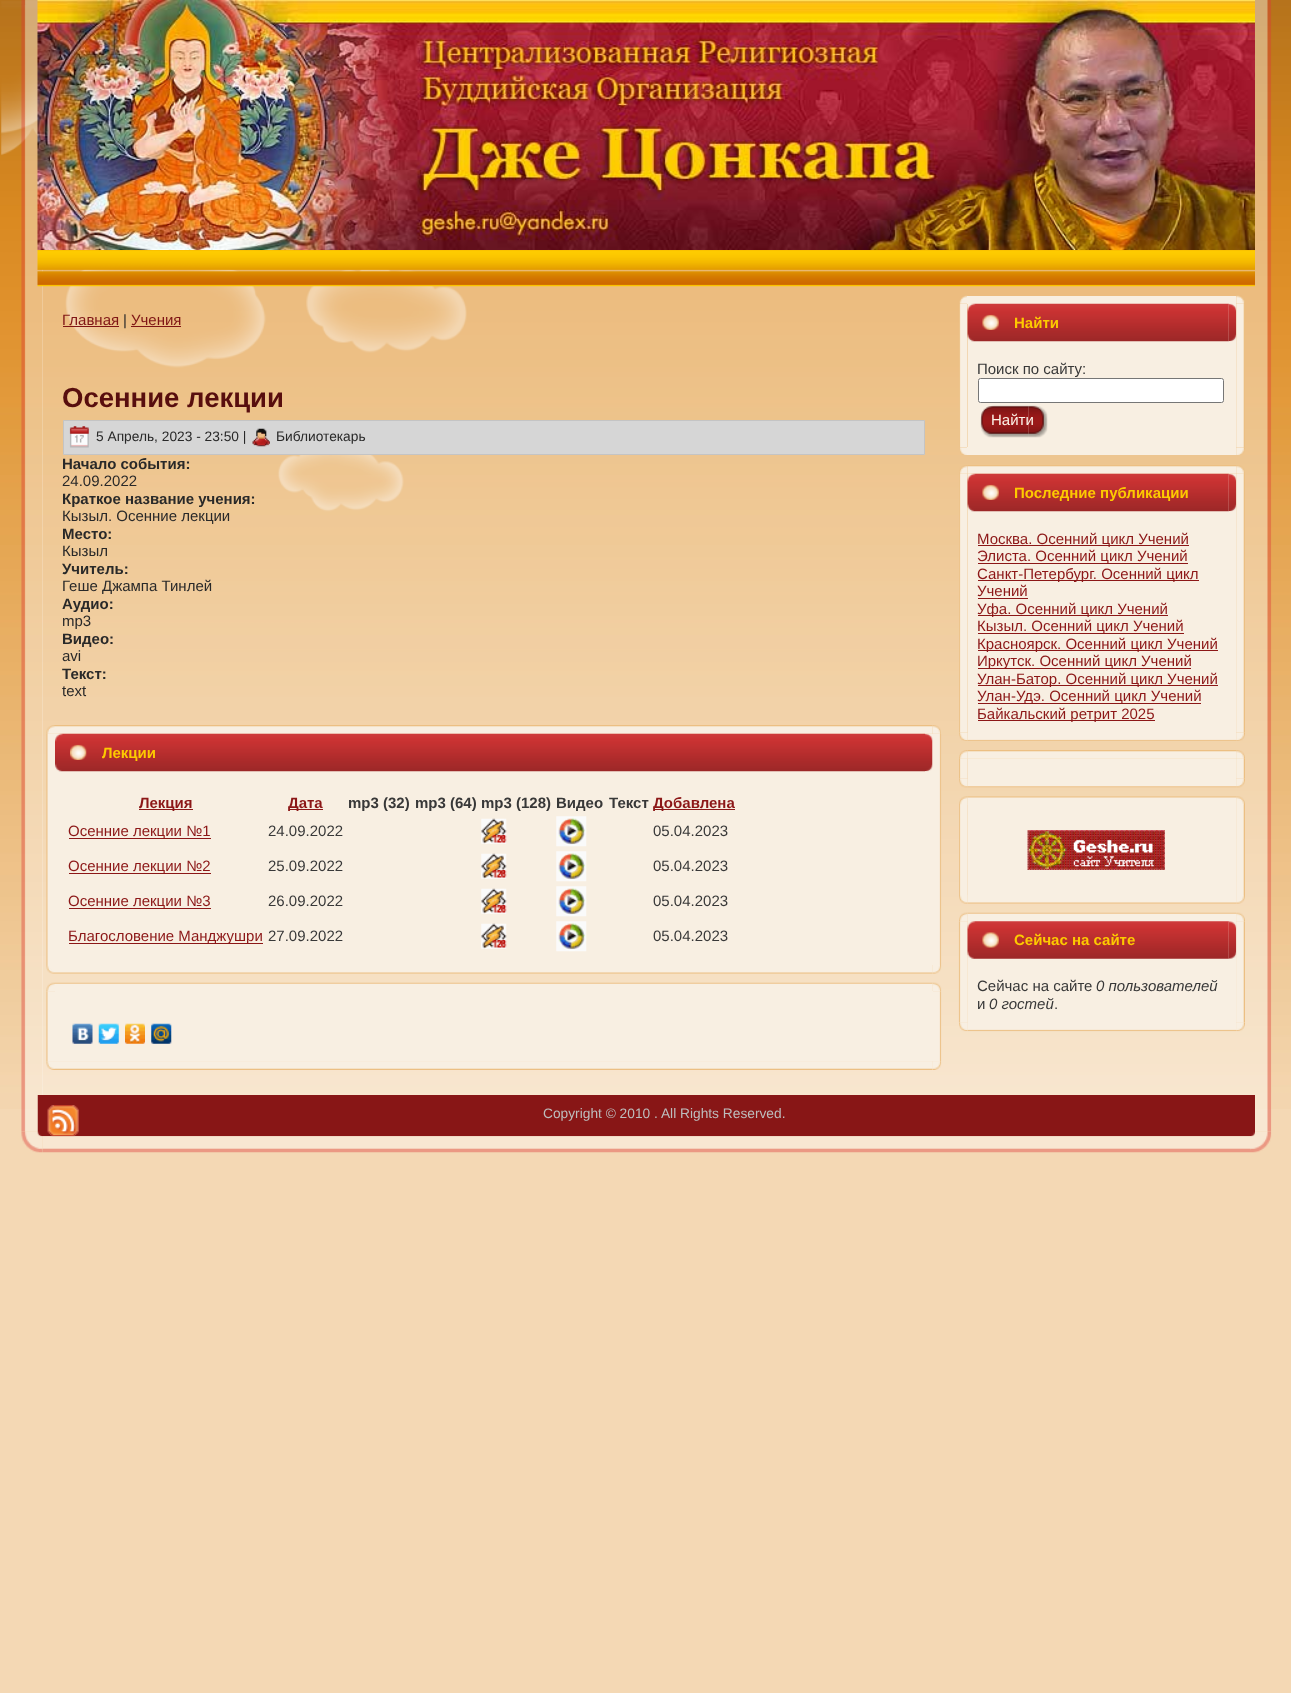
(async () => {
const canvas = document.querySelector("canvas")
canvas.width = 1291
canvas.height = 1693
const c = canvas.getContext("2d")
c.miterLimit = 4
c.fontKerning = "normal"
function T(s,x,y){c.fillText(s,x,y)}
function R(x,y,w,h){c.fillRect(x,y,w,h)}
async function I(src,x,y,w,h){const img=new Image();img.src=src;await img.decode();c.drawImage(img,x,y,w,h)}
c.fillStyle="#f4d8b4"
R(0,0,1291,1693)
await I("1.png",0,0,1291,1109)
await I("2.png",1,1,466,511)
await I("3.png",21,0,17,5)
await I("4.png",1255,0,16,5)
await I("5.png",21,5,22,1126)
c.fillStyle="#ffffff66"
R(42,269,1208,826)
await I("6.png",1250,5,22,1126)
await I("7.png",37,0,1218,250)
await I("8.png",37,250,1218,37)
c.font="15px Liberation Sans"
c.fillStyle="#7f1515"
T("Главная",62,325)
R(63,326,56,1)
c.fillStyle="#292929"
T("|",123,325)
c.fillStyle="#7f1515"
T("Учения",131,325)
R(131,326,50,1)
c.font="bold 27.5px Liberation Sans"
c.fillStyle="#580e0e"
T("Осенние лекции",62,407)
c.fillStyle="#d6d6d6"
c.beginPath()
c.rect(63.5,420.5,861,34)
c.fill()
c.strokeStyle="#c4c4c4"
c.stroke()
await I("9.png",69,426,20,22)
c.font="13.75px Liberation Sans"
c.fillStyle="#292929"
T("5 Апрель, 2023 - 23:50 |",96,441)
await I("10.png",252,428,18,19)
T("Библиотекарь",276,441)
c.font="bold 15px Liberation Sans"
T("Начало события:",62,469)
c.font="15px Liberation Sans"
T("24.09.2022",62,486)
c.font="bold 15px Liberation Sans"
T("Краткое название учения:",62,504)
c.font="15px Liberation Sans"
T("Кызыл. Осенние лекции",62,521)
c.font="bold 15px Liberation Sans"
T("Место:",62,539)
c.font="15px Liberation Sans"
T("Кызыл",62,556)
c.font="bold 15px Liberation Sans"
T("Учитель:",62,574)
c.font="15px Liberation Sans"
T("Геше Джампа Тинлей",62,591)
c.font="bold 15px Liberation Sans"
T("Аудио:",62,609)
c.font="15px Liberation Sans"
T("mp3",62,626)
c.font="bold 15px Liberation Sans"
T("Видео:",62,644)
c.font="15px Liberation Sans"
T("avi",62,661)
c.font="bold 15px Liberation Sans"
T("Текст:",62,679)
c.font="15px Liberation Sans"
T("text",62,696)
await I("11.png",46,725,9,9)
await I("13.png",932,725,9,9)
await I("12.png",55,725,878,9)
await I("14.png",46,734,9,231)
c.fillStyle="#f8efe2"
R(55,734,878,231)
await I("15.png",933,734,9,231)
await I("16.png",55,733,870,39)
await I("17.png",925,733,8,39)
await I("18.png",70,744,17,16)
c.font="bold 15px Liberation Sans"
c.fillStyle="#fdca00"
T("Лекции",102,758)
c.fillStyle="#8c1717"
R(139,809,54,1)
T("Лекция",139,808)
R(289,809,34,1)
T("Дата",288,808)
c.fillStyle="#383838"
T("mp3 (32)",348,808)
T("mp3 (64)",415,808)
T("mp3 (128)",481,808)
T("Видео",556,808)
T("Текст",609,808)
c.fillStyle="#8c1717"
R(654,809,81,1)
T("Добавлена",653,808)
R(69,838,142,1)
c.font="15px Liberation Sans"
T("Осенние лекции №1",68,836)
c.fillStyle="#383838"
T("24.09.2022",268,836)
await I("19.png",481,818,26,26)
await I("20.png",556,816,31,31)
T("05.04.2023",653,836)
c.fillStyle="#8c1717"
R(69,873,142,1)
T("Осенние лекции №2",68,871)
c.fillStyle="#383838"
T("25.09.2022",268,871)
await I("19.png",481,853,26,26)
await I("20.png",556,851,31,31)
T("05.04.2023",653,871)
c.fillStyle="#8c1717"
R(69,908,142,1)
T("Осенние лекции №3",68,906)
c.fillStyle="#383838"
T("26.09.2022",268,906)
await I("19.png",481,888,26,26)
await I("20.png",556,886,31,31)
T("05.04.2023",653,906)
c.fillStyle="#8c1717"
R(69,943,194,1)
T("Благословение Манджушри",68,941)
c.fillStyle="#383838"
T("27.09.2022",268,941)
await I("19.png",481,923,26,26)
await I("20.png",556,921,31,31)
T("05.04.2023",653,941)
await I("21.png",46,965,9,9)
await I("23.png",932,965,10,9)
await I("22.png",55,965,878,9)
await I("24.png",46,982,9,10)
await I("26.png",932,982,10,10)
await I("25.png",55,982,878,9)
await I("27.png",46,991,9,70)
c.fillStyle="#f8efe2"
R(55,991,878,70)
await I("28.png",933,991,9,70)
await I("29.png",72,1023,21,21)
await I("30.png",98,1023,21,21)
await I("31.png",125,1023,20,21)
await I("32.png",151,1023,21,21)
await I("33.png",46,1061,9,9)
await I("35.png",932,1061,10,9)
await I("34.png",55,1061,878,9)
await I("36.png",959,295,9,9)
R(967,296,269,8)
await I("37.png",1236,295,9,9)
await I("45.png",960,447,7,8)
R(967,447,269,8)
await I("38.png",959,304,9,144)
R(968,304,268,143)
await I("46.png",1236,447,9,8)
await I("39.png",1236,304,9,144)
await I("40.png",967,303,262,39)
await I("41.png",1228,303,9,39)
await I("42.png",982,314,17,16)
c.font="bold 15px Liberation Sans"
c.fillStyle="#fdca00"
T("Найти",1014,328)
c.font="15px Liberation Sans"
c.fillStyle="#383838"
T("Поиск по сайту:",977,374)
c.fillStyle="#fff"
c.beginPath()
c.roundRect(978.5,378.5,245,24,2)
c.fill()
c.strokeStyle="#767676"
c.stroke()
await I("43.png",980,405,49,33)
await I("44.png",1028,405,20,33)
c.fillStyle="#fcf4e9"
T("Найти",991,425)
await I("47.png",959,465,9,9)
await I("48.png",967,465,269,9)
await I("49.png",1236,465,9,9)
await I("54.png",959,732,9,9)
await I("55.png",967,732,269,9)
await I("50.png",959,474,9,259)
c.fillStyle="#f8efe2"
R(968,474,268,259)
await I("56.png",1236,732,9,9)
await I("51.png",1236,474,9,259)
await I("52.png",967,473,262,39)
await I("53.png",1228,473,9,39)
await I("42.png",982,484,17,16)
c.font="bold 15px Liberation Sans"
c.fillStyle="#fdca00"
T("Последние публикации",1014,498)
c.fillStyle="#8c1717"
R(978,545,211,1)
c.font="15px Liberation Sans"
T("Москва. Осенний цикл Учений",977,544)
R(978,563,210,1)
T("Элиста. Осенний цикл Учений",977,561)
R(978,580,221,1)
T("Санкт-Петербург. Осенний цикл",977,579)
T("Учений",977,596)
R(978,598,50,1)
R(978,615,190,1)
T("Уфа. Осенний цикл Учений",977,614)
R(978,633,206,1)
T("Кызыл. Осенний цикл Учений",977,631)
R(978,650,240,1)
T("Красноярск. Осенний цикл Учений",977,649)
R(978,668,213,1)
T("Иркутск. Осенний цикл Учений",977,666)
R(978,685,240,1)
T("Улан-Батор. Осенний цикл Учений",977,684)
R(978,703,223,1)
T("Улан-Удэ. Осенний цикл Учений",977,701)
R(978,720,177,1)
T("Байкальский ретрит 2025",977,719)
await I("57.png",959,750,9,9)
await I("58.png",967,750,269,9)
await I("59.png",1236,750,9,9)
await I("62.png",959,778,9,10)
await I("63.png",967,778,269,10)
await I("60.png",959,759,9,20)
c.fillStyle="#f8efe2"
R(968,759,268,20)
await I("64.png",1236,778,9,10)
await I("61.png",1236,759,9,20)
await I("65.png",959,796,9,9)
await I("66.png",967,796,269,9)
await I("67.png",1236,796,9,9)
await I("68.png",959,805,9,90)
R(968,805,268,90)
await I("69.png",1236,805,9,90)
await I("70.png",1027,830,138,40)
await I("71.png",959,895,9,9)
await I("72.png",967,895,269,9)
await I("73.png",1236,895,9,9)
await I("74.png",959,912,9,10)
await I("75.png",967,912,269,10)
await I("76.png",1236,912,9,10)
await I("82.png",959,1022,9,10)
await I("83.png",967,1022,269,10)
await I("77.png",958,921,10,102)
R(968,921,268,102)
await I("84.png",1236,1022,9,10)
await I("78.png",1236,921,9,102)
await I("79.png",967,921,262,38)
await I("80.png",1228,921,9,38)
await I("81.png",982,932,17,16)
c.font="bold 15px Liberation Sans"
c.fillStyle="#fdca00"
T("Сейчас на сайте",1014,945)
c.font="15px Liberation Sans"
c.fillStyle="#383838"
T("Сейчас на сайте",977,991)
c.font="italic 15px Liberation Sans"
T("0 пользователей",1096,991)
c.font="15px Liberation Sans"
T("и",977,1009)
c.font="italic 15px Liberation Sans"
T("0 гостей",989,1009)
c.font="15px Liberation Sans"
T(".",1054,1009)
await I("87.png",21,1131,22,22)
await I("88.png",42,1136,1208,17)
await I("89.png",1250,1131,22,22)
await I("85.png",37,1095,1218,42)
await I("86.png",47,1105,32,32)
c.font="13.75px Liberation Sans"
c.fillStyle="#bdbdbd"
T("Copyright © 2010 . All Rights Reserved.",543,1118)
})()
